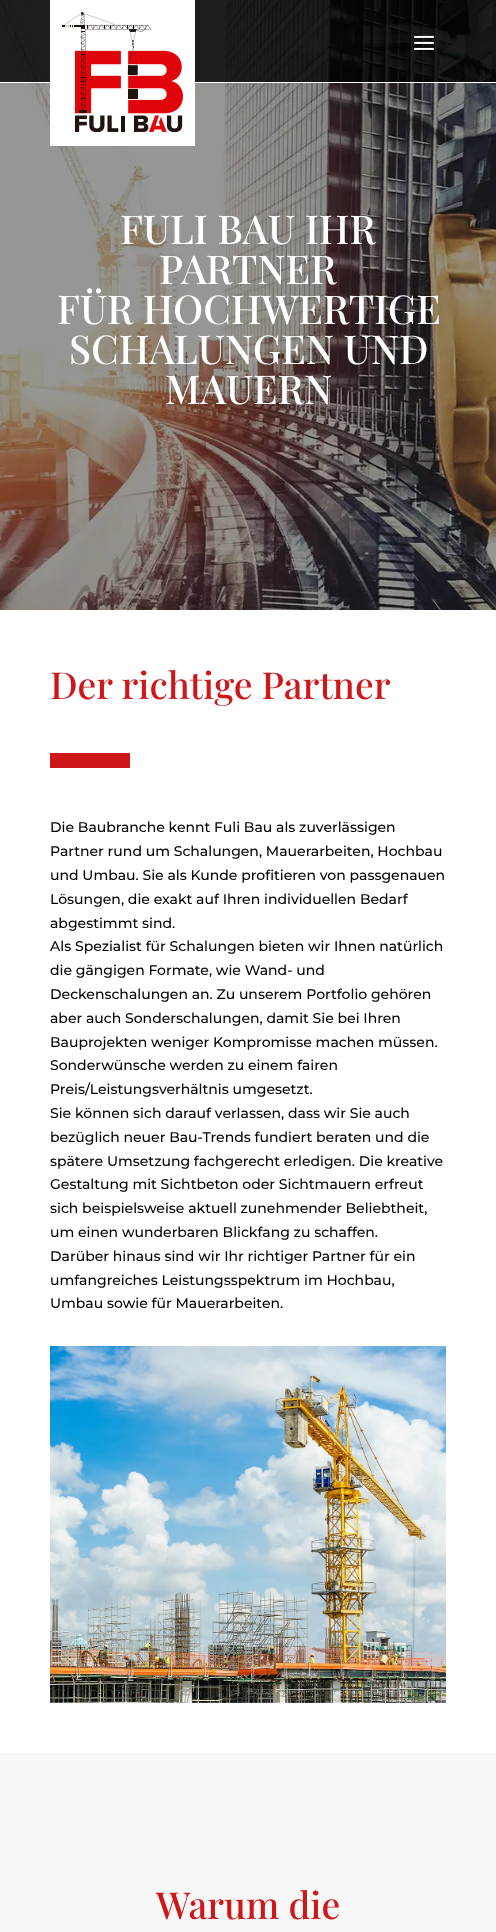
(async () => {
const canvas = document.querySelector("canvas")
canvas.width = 496
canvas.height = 1932
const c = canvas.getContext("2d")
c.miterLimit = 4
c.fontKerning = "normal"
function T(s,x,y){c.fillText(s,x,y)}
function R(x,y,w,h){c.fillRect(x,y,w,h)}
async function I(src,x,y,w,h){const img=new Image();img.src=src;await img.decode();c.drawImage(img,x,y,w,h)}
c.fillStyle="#fff"
R(0,0,496,1932)
await I("3.png",0,0,496,610)
c.fillStyle="#000000cc"
R(0,0,496,82)
c.fillStyle="#fff"
R(0,82,496,1)
R(50,0,145,146)
await I("1.png",62,12,121,120)
await I("2.png",414,35,20,15)
c.font="500 39.75px Playfair Display"
T("FULI BAU IHR",120,244)
T("PARTNER",159,284)
T("FÜR HOCHWERTIGE",57,324)
T("SCHALUNGEN UND",69,364)
T("MAUERN",165,404)
c.font="500 37.25px Playfair Display"
c.fillStyle="#cd1719"
T("Der richtige Partner",50,699)
R(50,753,80,15)
c.font="100 14px Montserrat"
c.fillStyle="#020100"
T("Die Baubranche kennt Fuli Bau als zuverlässigen",50,832)
T("Partner rund um Schalungen, Mauerarbeiten, Hochbau",50,856)
T("und Umbau. Sie als Kunde profitieren von passgenauen",50,880)
T("Lösungen, die exakt auf Ihren individuellen Bedarf",50,904)
T("abgestimmt sind.",50,928)
T("Als Spezialist für Schalungen bieten wir Ihnen natürlich",50,951)
T("die gängigen Formate, wie Wand- und",50,975)
T("Deckenschalungen an. Zu unserem Portfolio gehören",50,999)
T("aber auch Sonderschalungen, damit Sie bei Ihren",50,1023)
T("Bauprojekten weniger Kompromisse machen müssen.",50,1047)
T("Sonderwünsche werden zu einem fairen",50,1070)
T("Preis/Leistungsverhältnis umgesetzt.",50,1094)
T("Sie können sich darauf verlassen, dass wir Sie auch",50,1118)
T("bezüglich neuer Bau-Trends fundiert beraten und die",50,1142)
T("spätere Umsetzung fachgerecht erledigen. Die kreative",50,1166)
T("Gestaltung mit Sichtbeton oder Sichtmauern erfreut",50,1189)
T("sich beispielsweise aktuell zunehmender Beliebtheit,",50,1213)
T("um einen wunderbaren Blickfang zu schaffen.",50,1237)
T("Darüber hinaus sind wir Ihr richtiger Partner für ein",50,1261)
T("umfangreiches Leistungsspektrum im Hochbau,",50,1285)
T("Umbau sowie für Mauerarbeiten.",50,1308)
await I("4.png",50,1346,396,357)
c.fillStyle="#f8f8f8"
R(0,1753,496,179)
c.font="500 37.25px Playfair Display"
c.fillStyle="#cd1719"
T("Warum die",156,1919)
})()
